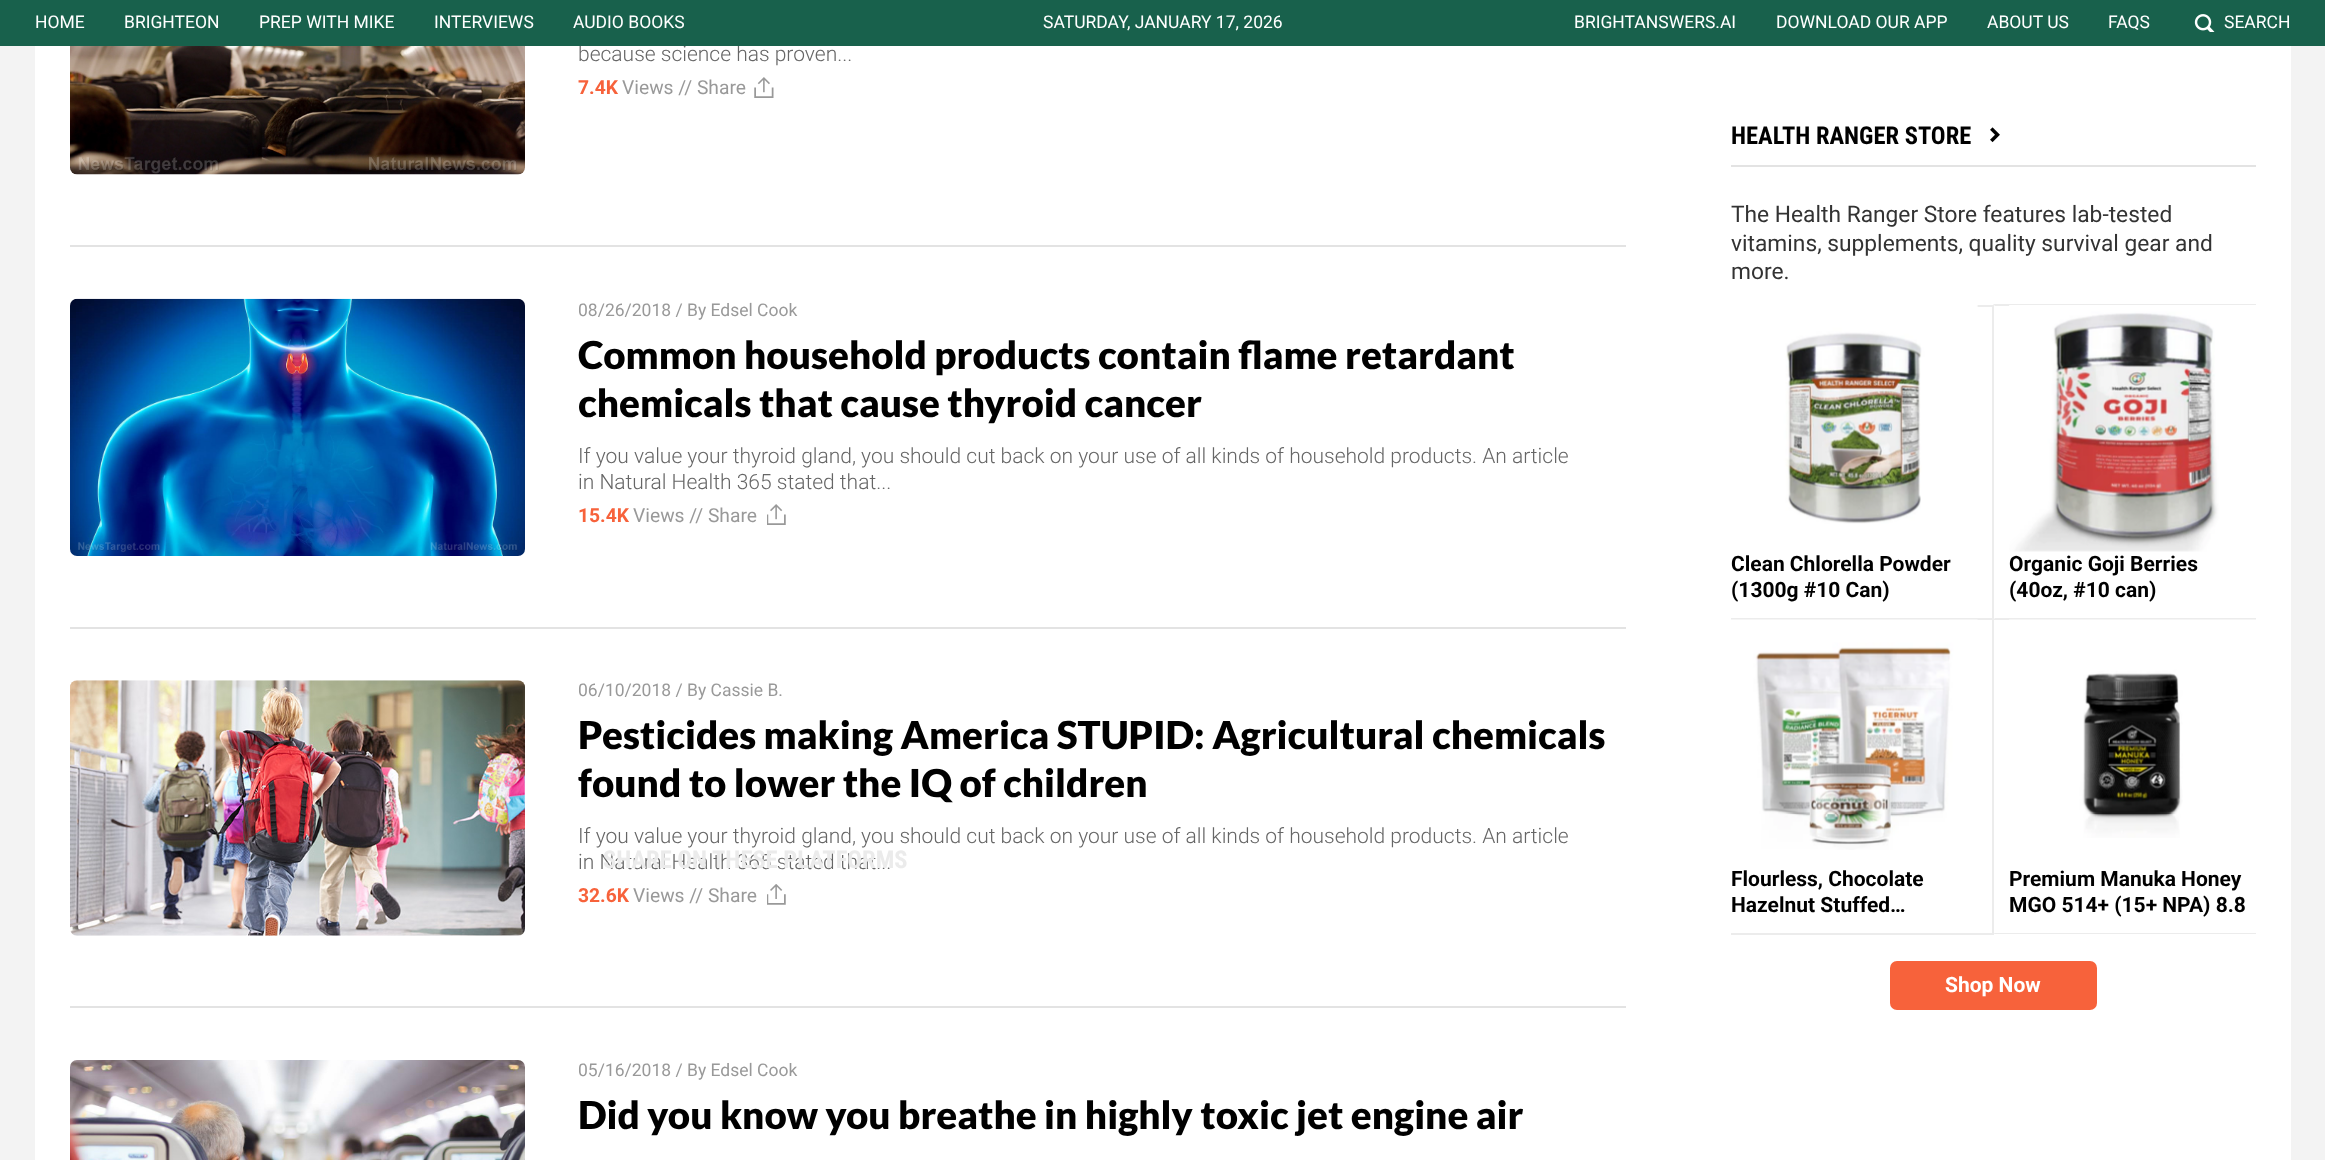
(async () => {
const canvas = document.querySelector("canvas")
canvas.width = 2325
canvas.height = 1160
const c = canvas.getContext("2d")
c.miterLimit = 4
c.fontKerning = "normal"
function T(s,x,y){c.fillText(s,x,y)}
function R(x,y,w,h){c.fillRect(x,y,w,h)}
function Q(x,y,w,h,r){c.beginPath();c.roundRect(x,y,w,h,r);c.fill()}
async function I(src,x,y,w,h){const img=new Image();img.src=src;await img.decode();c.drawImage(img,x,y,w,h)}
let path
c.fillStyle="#f3f3f3"
R(0,0,2325,1160)
c.fillStyle="#fff"
R(35,46,2256,1114)
c.font="300 21px Roboto"
c.fillStyle="#666"
T("because science has proven...",578,61)
c.fillStyle="#18614c"
R(0,0,2325,46)
c.font="17.5px Roboto"
c.fillStyle="#fff"
T("HOME",35,28)
T("BRIGHTEON",124,28)
T("PREP WITH MIKE",259,28)
T("INTERVIEWS",434,28)
T("AUDIO BOOKS",573,28)
T("SATURDAY, JANUARY 17, 2026",1043,28)
T("BRIGHTANSWERS.AI",1574,28)
T("DOWNLOAD OUR APP",1776,28)
T("ABOUT US",1987,28)
T("FAQS",2108,28)
await I("1.png",2194,14,21,18)
T("SEARCH",2224,28)
c.fillStyle="#e3e3e3"
R(70,245,1556,2)
await I("2.png",70,46,455,129)
c.font="bold 19.25px Roboto"
c.fillStyle="#f7623b"
T("7.4K",578,94)
c.font="19.25px Roboto"
c.fillStyle="#999"
T("Views // Share",622,94)
await I("3.png",754,77,20,21)
c.fillStyle="#e3e3e3"
R(70,627,1556,2)
await I("4.png",70,298,455,258)
c.font="17.5px Roboto"
c.fillStyle="#999"
T("08/26/2018 / By Edsel Cook",578,316)
c.font="900 38.5px Lato"
c.fillStyle="#000"
T("Common household products contain flame retardant",578,369)
T("chemicals that cause thyroid cancer",578,417)
c.font="300 21px Roboto"
c.fillStyle="#666"
T("If you value your thyroid gland, you should cut back on your use of all kinds of household products. An article",578,463)
T("in Natural Health 365 stated that...",578,489)
c.font="bold 19.25px Roboto"
c.fillStyle="#f7623b"
T("15.4K",578,522)
c.font="19.25px Roboto"
c.fillStyle="#999"
T("Views // Share",633,522)
await I("5.png",767,504,19,21)
c.fillStyle="#e3e3e3"
R(70,1006,1556,2)
await I("6.png",70,680,455,256)
c.font="17.5px Roboto"
c.fillStyle="#999"
T("06/10/2018 / By Cassie B.",578,696)
c.font="900 38.5px Lato"
c.fillStyle="#000"
T("Pesticides making America STUPID: Agricultural chemicals",578,749)
T("found to lower the IQ of children",578,797)
c.font="300 21px Roboto"
c.fillStyle="#666"
T("If you value your thyroid gland, you should cut back on your use of all kinds of household products. An article",578,843)
T("in Natural Health 365 stated that...",578,869)
c.font="bold 19.25px Roboto"
c.fillStyle="#f7623b"
T("32.6K",578,902)
c.font="19.25px Roboto"
c.fillStyle="#999"
T("Views // Share",633,902)
await I("7.png",767,884,19,21)
await I("8.png",70,1060,455,100)
c.font="17.5px Roboto"
T("05/16/2018 / By Edsel Cook",578,1076)
c.font="900 38.5px Lato"
c.fillStyle="#000"
T("Did you know you breathe in highly toxic jet engine air",578,1129)
c.fillStyle="#e3e3e3"
R(1731,165,525,2)
c.font="bold 24.5px Roboto Condensed"
c.fillStyle="#000"
T("HEALTH RANGER STORE",1731,144)
await I("9.png",1990,127,10,16)
c.font="22.75px Roboto"
c.fillStyle="#333"
T("The Health Ranger Store features lab-tested",1731,222)
T("vitamins, supplements, quality survival gear and",1731,251)
T("more.",1731,279)
c.fillStyle="#ececec"
R(1976,305,17,2)
R(1992,305,2,630)
R(1731,618,262,2)
await I("10.png",1731,305,247,219)
c.font="bold 21px Roboto"
c.fillStyle="#000"
T("Clean Chlorella Powder",1731,571)
T("(1300g #10 Can)",1731,597)
c.fillStyle="#ececec"
path = new Path2D("M1993 304h263v2h-261z")
c.fill(path)
path = new Path2D("M2256 620h-263l2-2h261z")
c.fill(path)
await I("11.png",2009,305,247,247)
c.fillStyle="#000"
T("Organic Goji Berries",2009,571)
T("(40oz, #10 can)",2009,597)
c.fillStyle="#ececec"
R(1731,933,262,2)
await I("12.png",1731,619,247,231)
c.fillStyle="#000"
T("Flourless, Chocolate",1731,886)
T("Hazelnut Stuffed…",1731,912)
c.fillStyle="#ececec"
path = new Path2D("M2256 934h-263l2-1h261z")
c.fill(path)
await I("13.png",2009,619,247,219)
c.fillStyle="#000"
T("Premium Manuka Honey",2009,886)
T("MGO 514+ (15+ NPA) 8.8",2009,912)
c.fillStyle="#f7623b"
Q(1890,961,207,49,7)
c.fillStyle="#fff"
T("Shop Now",1945,992)
c.font="bold 24.5px Roboto Condensed"
c.fillStyle="#ebebeb"
T("SHARE ON THESE PLATFORMS",603,868)
})()
